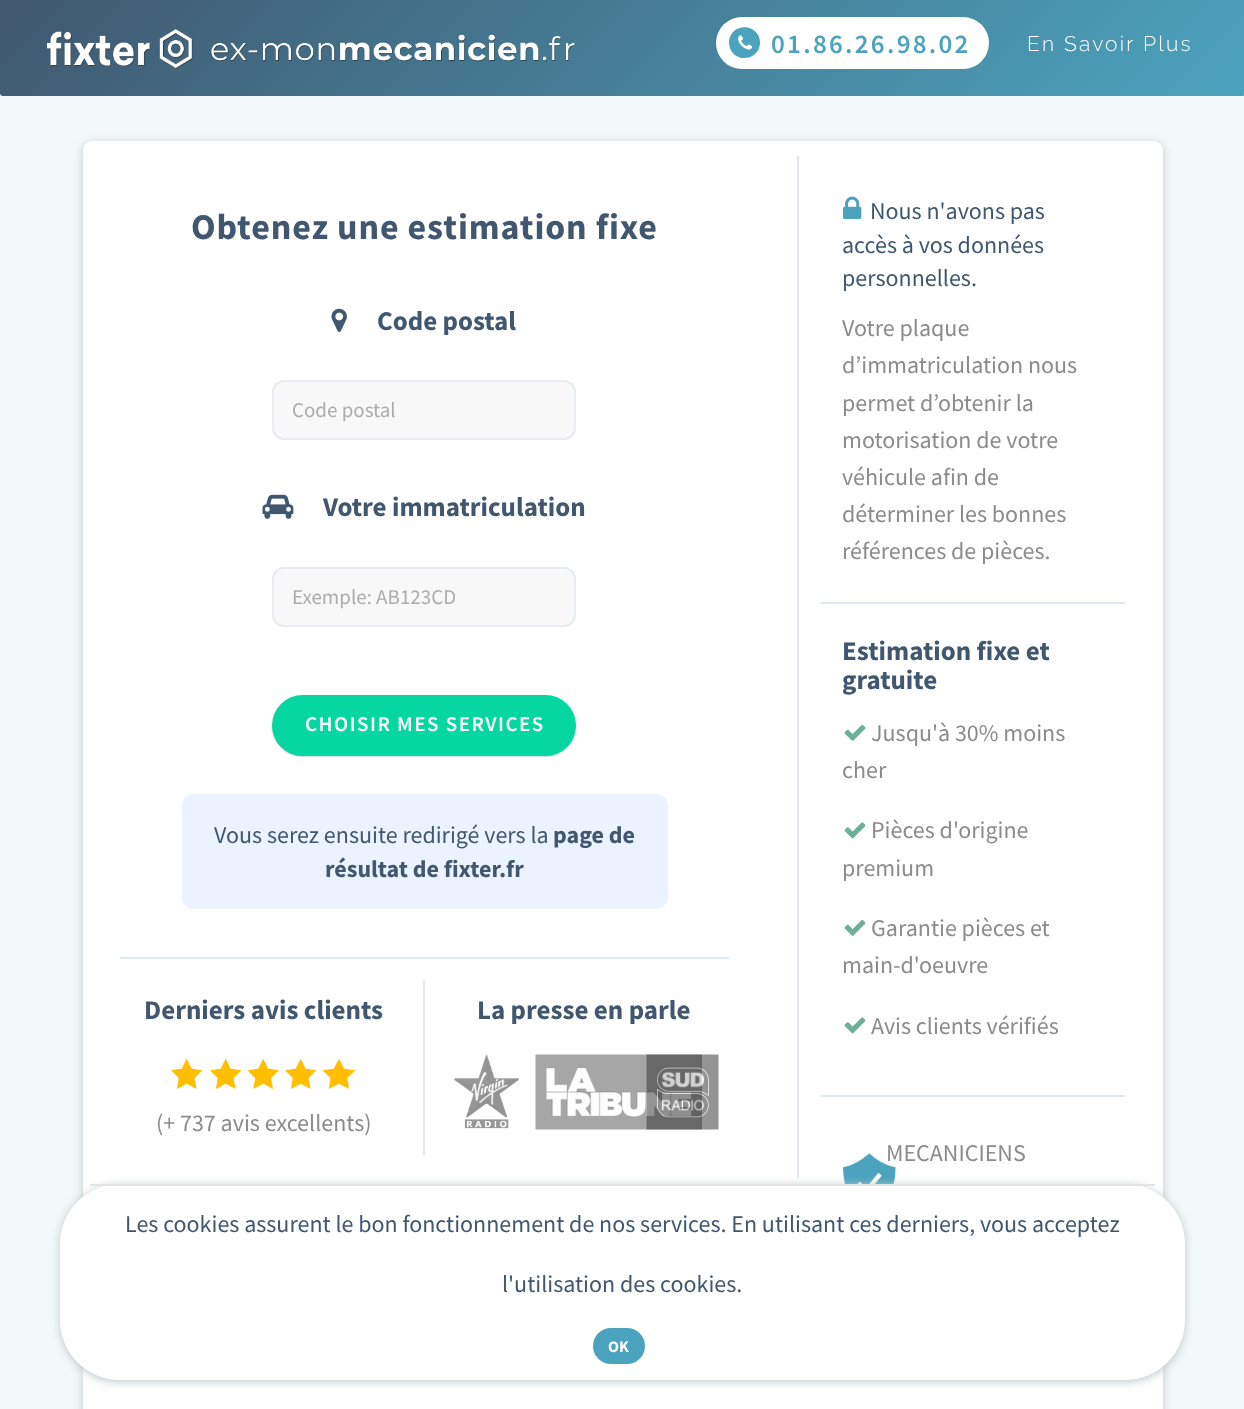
(async () => {
const canvas = document.querySelector("canvas")
canvas.width = 1244
canvas.height = 1409
const c = canvas.getContext("2d")
c.miterLimit = 4
c.fontKerning = "normal"
function T(s,x,y){c.fillText(s,x,y)}
function R(x,y,w,h){c.fillRect(x,y,w,h)}
function Q(x,y,w,h,r){c.beginPath();c.roundRect(x,y,w,h,r);c.fill()}
async function I(src,x,y,w,h){const img=new Image();img.src=src;await img.decode();c.drawImage(img,x,y,w,h)}
let gradient, path
c.fillStyle="#f7fafc"
R(0,0,1244,1409)
gradient = c.createLinearGradient(285,-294,960,381)
gradient.addColorStop(0,"#40576f")
gradient.addColorStop(1,"#4ca3bd")
c.fillStyle = gradient
Q(0,-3,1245,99,3)
await I("1.png",47,29,529,40)
c.fillStyle="#fff"
Q(716,17,273,52,26)
c.fillStyle="#4ca3bd"
path = new Path2D("M758 35c1.5 2.5 2 5.5 2 8.5c-1 15.5-21.5 20-29 7c-1.5-3-2-6-2-9c1-15 21-19.5 29-6.5z")
c.fill(path)
await I("2.png",738,35,15,15)
c.letterSpacing="2.25px"
c.font="600 27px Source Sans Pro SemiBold"
T("01.86.26.98.02",771,53)
c.font="300 21px Raleway"
c.fillStyle="#fff"
T("En Savoir Plus",1027,51)
c.fillStyle="#f3f8fa"
R(0,96,1244,1313)
c.fillStyle="#c0c9cc"
c.filter="blur(4px)"
c.beginPath()
c.roundRect(83,143,1080,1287,9)
c.fill()
c.filter="none"
c.fillStyle="#fff"
Q(83,141,1080,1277,9)
c.fillStyle="#e0e9f2"
R(797,156,2,1022)
c.letterSpacing="0.9px"
c.font="bold 36px Source Sans Pro"
c.fillStyle="#40576f"
T("Obtenez une estimation fixe",191,239)
await I("3.png",331,308,16,24)
c.letterSpacing="0px"
c.font="bold 27px Source Sans Pro"
T("Code postal",377,330)
c.fillStyle="#f8f8f8"
c.beginPath()
c.roundRect(273,381,302,58,11)
c.fill()
c.strokeStyle="#e8ebef"
c.lineWidth=2
c.stroke()
c.font="21px Source Sans Pro"
c.fillStyle="#acacac"
T("Code postal",292,417)
c.fillStyle="#e0e9f2"
R(120,957,609,2)
await I("4.png",262,494,32,25)
c.font="bold 27px Source Sans Pro"
c.fillStyle="#40576f"
T("Votre immatriculation",323,516)
c.fillStyle="#f8f8f8"
c.beginPath()
c.roundRect(273,568,302,58,11)
c.fill()
c.stroke()
c.font="21px Source Sans Pro"
c.fillStyle="#acacac"
T("Exemple: AB123CD",292,604)
c.fillStyle="#8c9da1"
c.filter="blur(1px)"
c.beginPath()
c.roundRect(273,698,302,58,29)
c.fill()
c.filter="none"
c.fillStyle="#06d6a0"
Q(272,695,304,61,30.5)
c.letterSpacing="1.5px"
c.font="600 21px Source Sans Pro SemiBold"
c.fillStyle="#fff"
T("CHOISIR MES SERVICES",305,731)
c.fillStyle="#eaf3ff"
Q(182,794,486,115,12)
c.letterSpacing="0px"
c.font="24px Source Sans Pro"
c.fillStyle="#40576f"
T("Vous serez ensuite redirigé vers la",214,843)
c.font="bold 24px Source Sans Pro"
T("page de",553,843)
T("résultat de fixter.fr",325,877)
c.fillStyle="#e0e9f2"
R(423,981,2,174)
c.font="bold 27px Source Sans Pro"
c.fillStyle="#40576f"
T("Derniers avis clients",144,1019)
await I("5.png",171,1059,32,30)
await I("5.png",210,1059,32,30)
await I("6.png",247,1059,32,30)
await I("5.png",285,1059,32,30)
await I("7.png",322,1059,34,30)
c.font="24px Source Sans Pro"
c.fillStyle="#8c8a8c"
T("(+ 737 avis excellents)",156,1131)
c.font="bold 27px Source Sans Pro"
c.fillStyle="#40576f"
T("La presse en parle",477,1019)
await I("8.png",535,1054,167,76)
await I("9.png",454,1055,65,74)
await I("10.png",646,1054,73,76)
c.fillStyle="#e0e9f2"
R(821,602,304,2)
await I("11.png",843,196,19,23)
c.font="24px Source Sans Pro"
c.fillStyle="#40576f"
T("Nous n'avons pas",870,219)
T("accès à vos données",842,253)
T("personnelles.",842,286)
c.fillStyle="#8c8a8c"
T("Votre plaque",842,336)
T("d’immatriculation nous",842,373)
T("permet d’obtenir la",842,411)
T("motorisation de votre",842,448)
T("véhicule afin de",842,485)
T("déterminer les bonnes",842,522)
T("références de pièces.",842,559)
c.fillStyle="#e0e9f2"
R(821,1095,304,2)
c.font="bold 27px Source Sans Pro"
c.fillStyle="#40576f"
T("Estimation fixe et",842,660)
T("gratuite",842,689)
await I("12.png",844,724,22,17)
c.font="24px Source Sans Pro"
c.fillStyle="#8c8a8c"
T("Jusqu'à 30% moins",871,741)
T("cher",842,778)
await I("13.png",844,822,22,17)
T("Pièces d'origine",871,838)
T("premium",842,876)
await I("12.png",844,919,22,17)
T("Garantie pièces et",871,936)
T("main-d'oeuvre",842,973)
await I("13.png",844,1017,22,17)
T("Avis clients vérifiés",871,1034)
await I("14.png",843,1153,53,31)
T("MECANICIENS",886,1161)
c.fillStyle="#c0c9cc"
c.filter="blur(4px)"
c.beginPath()
c.roundRect(60,1185,1125,197,60)
c.fill()
c.filter="none"
c.fillStyle="#fff"
Q(60,1184,1125,196,60)
c.fillStyle="#e4e4e4"
R(90,1184,1065,2)
c.fillStyle="#40576f"
T("Les cookies assurent le bon fonctionnement de nos services. En utilisant ces derniers, vous acceptez",125,1232)
T("l'utilisation des cookies.",502,1292)
c.fillStyle="#4ca3bd"
Q(593,1328,52,36,18)
c.font="bold 16px Source Sans Pro"
c.fillStyle="#fff"
T("OK",608,1352)
})()
